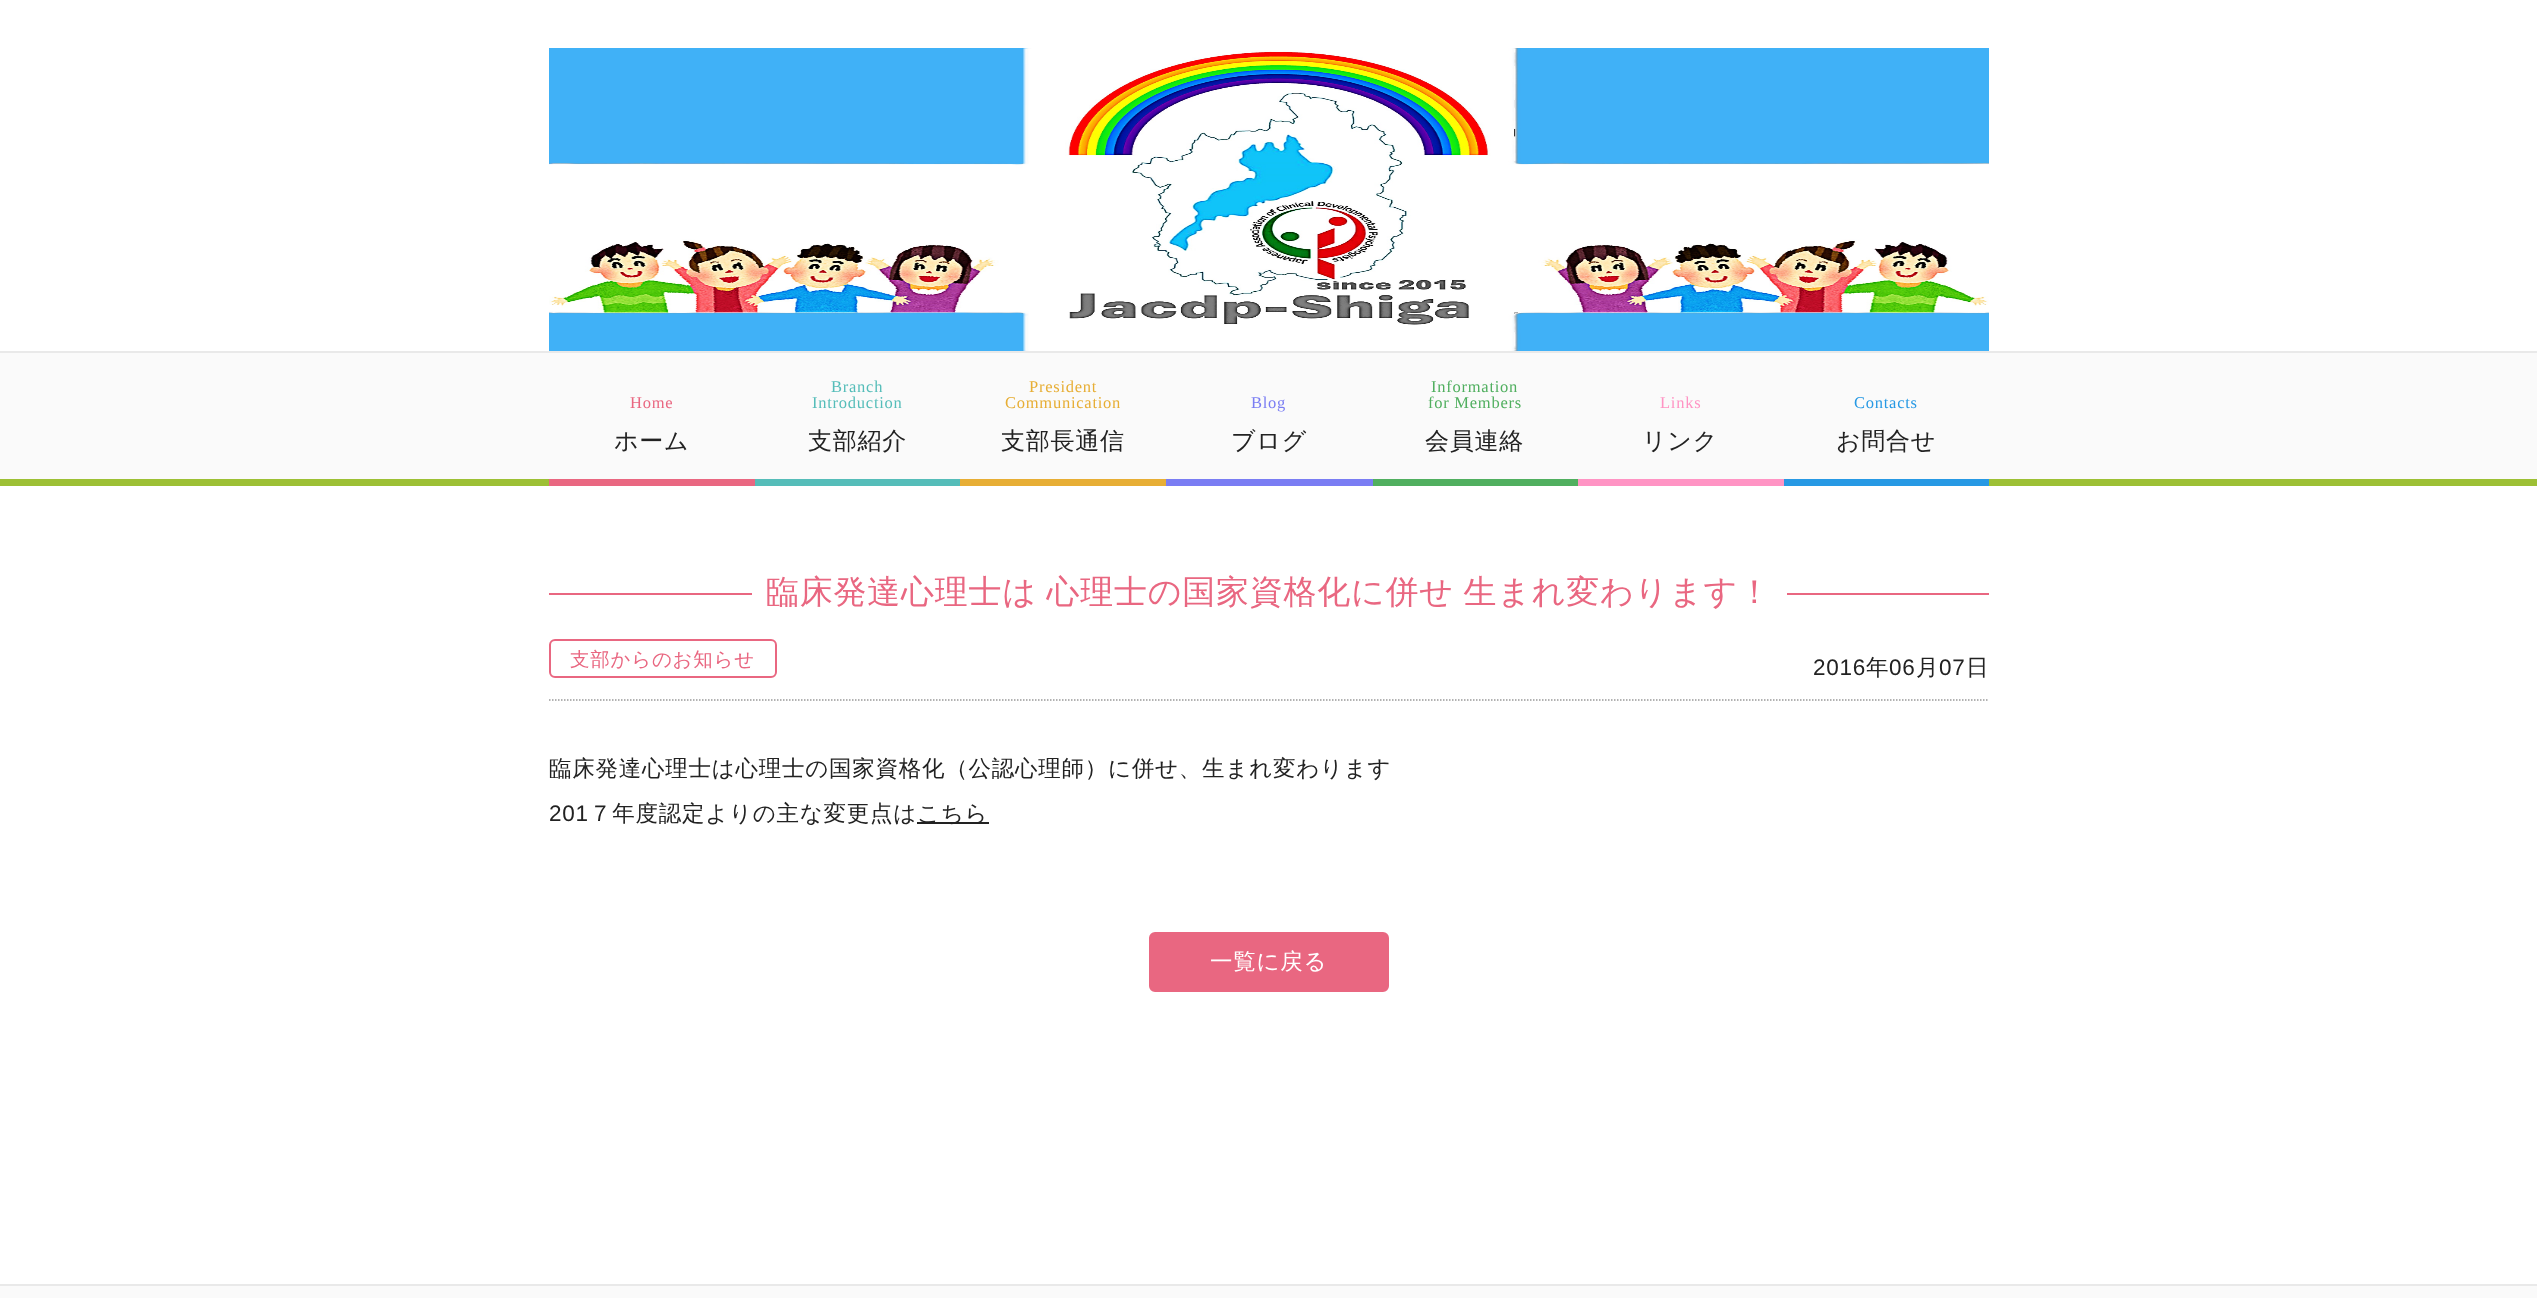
(async () => {
const canvas = document.querySelector("canvas")
canvas.width = 2537
canvas.height = 1298
const c = canvas.getContext("2d")
c.miterLimit = 4
c.fontKerning = "normal"
function T(s,x,y){c.fillText(s,x,y)}
function R(x,y,w,h){c.fillRect(x,y,w,h)}
async function I(src,x,y,w,h){const img=new Image();img.src=src;await img.decode();c.drawImage(img,x,y,w,h)}
let path
c.fillStyle="#fff"
R(0,0,2537,1298)
await I("1.png",549,48,1440,303)
c.fillStyle="#e9e9e9"
R(0,351,2537,2)
c.fillStyle="#fafafa"
R(0,353,2537,126)
c.fillStyle="#9dc035"
R(0,479,2537,7)
c.fillStyle="#e96781"
R(549,479,206,7)
c.letterSpacing="0.75px"
c.font="16.5px Liberation Serif"
T("Home",630,408)
c.font="500 24px WenQuanYi Zen Hei"
c.fillStyle="#222"
T("ホーム",614,449)
c.fillStyle="#55bdb9"
R(755,479,205,7)
c.font="16.5px Liberation Serif"
T("Branch",831,392)
T("Introduction",812,408)
c.font="500 24px WenQuanYi Zen Hei"
c.fillStyle="#222"
T("支部紹介",808,449)
c.fillStyle="#e7ae35"
R(960,479,206,7)
c.font="16.5px Liberation Serif"
T("President",1029,392)
T("Communication",1005,408)
c.font="500 24px WenQuanYi Zen Hei"
c.fillStyle="#222"
T("支部長通信",1001,449)
c.fillStyle="#7a7df3"
R(1166,479,207,7)
c.font="16.5px Liberation Serif"
T("Blog",1251,408)
c.font="500 24px WenQuanYi Zen Hei"
c.fillStyle="#222"
T("ブログ",1231,449)
c.fillStyle="#50af5f"
R(1373,479,205,7)
c.font="16.5px Liberation Serif"
T("Information",1431,392)
T("for Members",1428,408)
c.font="500 24px WenQuanYi Zen Hei"
c.fillStyle="#222"
T("会員連絡",1425,449)
c.fillStyle="#ff94c4"
R(1578,479,206,7)
c.font="16.5px Liberation Serif"
T("Links",1660,408)
c.font="500 24px WenQuanYi Zen Hei"
c.fillStyle="#222"
T("リンク",1642,449)
c.fillStyle="#2799e4"
R(1784,479,205,7)
c.font="16.5px Liberation Serif"
T("Contacts",1854,408)
c.font="500 24px WenQuanYi Zen Hei"
c.fillStyle="#222"
T("お問合せ",1836,449)
c.fillStyle="#e96781"
R(549,593,1440,2)
c.fillStyle="#fff"
R(752,593,1035,2)
c.wordSpacing="-1px"
c.font="500 33px WenQuanYi Zen Hei"
c.fillStyle="#e96781"
T("臨床発達心理士は 心理士の国家資格化に併せ 生まれ変わります！",766,603)
path = new Path2D("M549 700h1440")
c.strokeStyle="#999"
c.lineWidth=1.5
c.setLineDash([1.5,1.5])
c.stroke(path)
c.beginPath()
c.roundRect(550,640,226,37,5)
c.strokeStyle="#e96781"
c.lineWidth=2
c.setLineDash([])
c.stroke()
c.wordSpacing="0px"
c.font="500 19.5px WenQuanYi Zen Hei"
T("支部からのお知らせ",570,666)
c.font="22.5px Liberation Sans"
c.fillStyle="#222"
T("2016",1813,675)
c.font="500 22.5px WenQuanYi Zen Hei"
T("年",1866,675)
c.font="22.5px Liberation Sans"
T("06",1889,675)
c.font="500 22.5px WenQuanYi Zen Hei"
T("月",1916,675)
c.font="22.5px Liberation Sans"
T("07",1939,675)
c.font="500 22.5px WenQuanYi Zen Hei"
T("日",1966,675)
T("臨床発達心理士は心理士の国家資格化（公認心理師）に併せ、生まれ変わります",549,776)
c.font="22.5px Liberation Sans"
T("201",549,821)
c.font="500 22.5px WenQuanYi Zen Hei"
T("７年度認定よりの主な変更点は",589,821)
R(917,822,72,2)
T("こちら",917,821)
c.fillStyle="#e96781"
c.beginPath()
c.roundRect(1150,933,238,58,5)
c.fill()
c.stroke()
c.fillStyle="#fff"
T("一覧に戻る",1210,969)
c.fillStyle="#fafafa"
R(0,1286,2537,12)
c.fillStyle="#e9e9e9"
R(0,1284,2537,2)
})()
